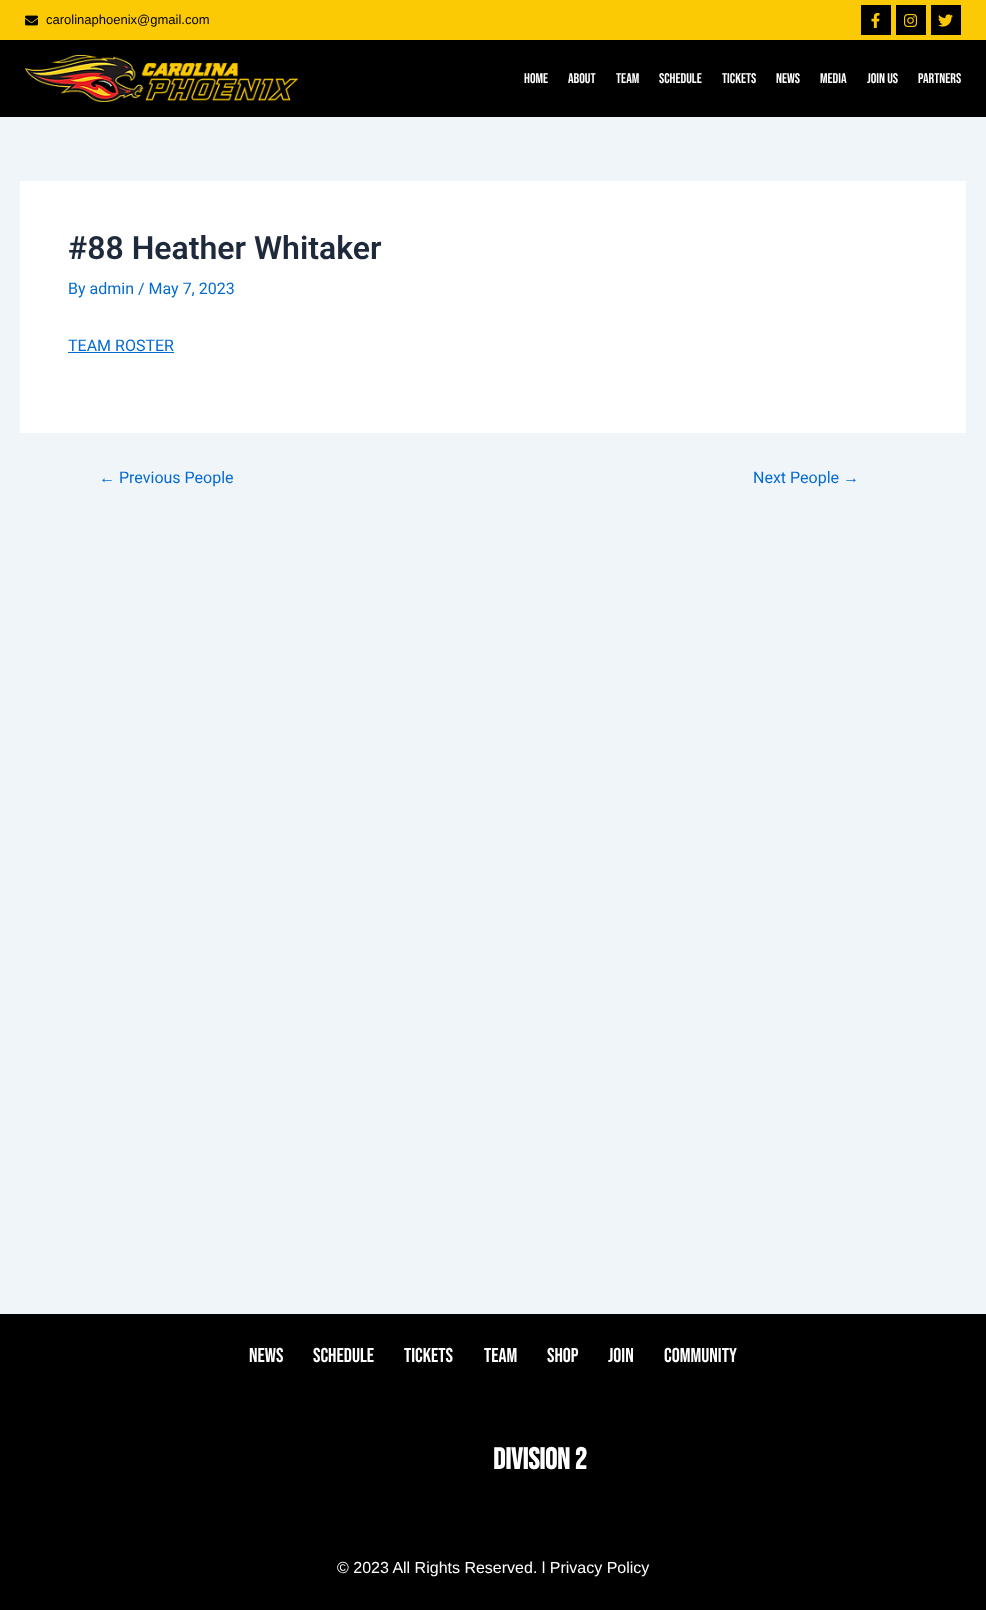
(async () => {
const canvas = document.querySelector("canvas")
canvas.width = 986
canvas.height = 1610
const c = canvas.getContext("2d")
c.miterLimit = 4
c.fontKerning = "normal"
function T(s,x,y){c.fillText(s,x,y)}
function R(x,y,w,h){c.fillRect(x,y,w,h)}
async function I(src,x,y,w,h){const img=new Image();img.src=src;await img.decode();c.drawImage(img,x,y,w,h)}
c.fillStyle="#f0f5fa"
R(0,0,986,1610)
c.fillStyle="#fcca04"
R(0,0,986,40)
await I("1.png",25,15,13,11)
c.font="13px Liberation Sans"
c.fillStyle="#000"
T("carolinaphoenix@gmail.com",46,24)
R(861,5,30,30)
await I("2.png",871,13,9,15)
R(896,5,30,30)
await I("3.png",904,14,14,13)
R(931,5,30,30)
await I("4.png",938,14,15,13)
R(0,40,986,77)
await I("5.png",25,55,274,47)
c.font="14px Bebas Neue"
c.fillStyle="#fff"
T("HOME",524,83)
T("ABOUT",568,83)
T("TEAM",616,83)
T("SCHEDULE",659,83)
T("TICKETS",722,83)
T("NEWS",776,83)
T("MEDIA",820,83)
T("JOIN US",867,83)
T("PARTNERS",918,83)
R(20,181,946,252)
c.font="600 32px Roboto"
c.fillStyle="#1e293b"
T("#88 Heather Whitaker",68,259)
c.font="16px Roboto"
c.fillStyle="#046bd2"
T("By admin / May 7, 2023",68,294)
T("TEAM ROSTER",68,351)
R(68,352,106,1)
c.font="16px Liberation Sans"
T("←",99,483)
c.font="16px Roboto"
T("Previous People",119,483)
T("Next People",753,483)
c.font="16px Liberation Sans"
T("→",843,483)
c.fillStyle="#000"
R(0,1314,986,296)
c.font="20px Bebas Neue"
c.fillStyle="#fff"
T("News",249,1362)
T("Schedule",313,1362)
T("Tickets",404,1362)
T("Team",484,1362)
T("Shop",547,1362)
T("Join",608,1362)
T("Community",664,1362)
c.font="bold 30px Bebas Neue"
T("DIVISION 2",493,1469)
c.font="16px Liberation Sans"
T("© 2023 All Rights Reserved. l Privacy Policy",337,1573)
})()
